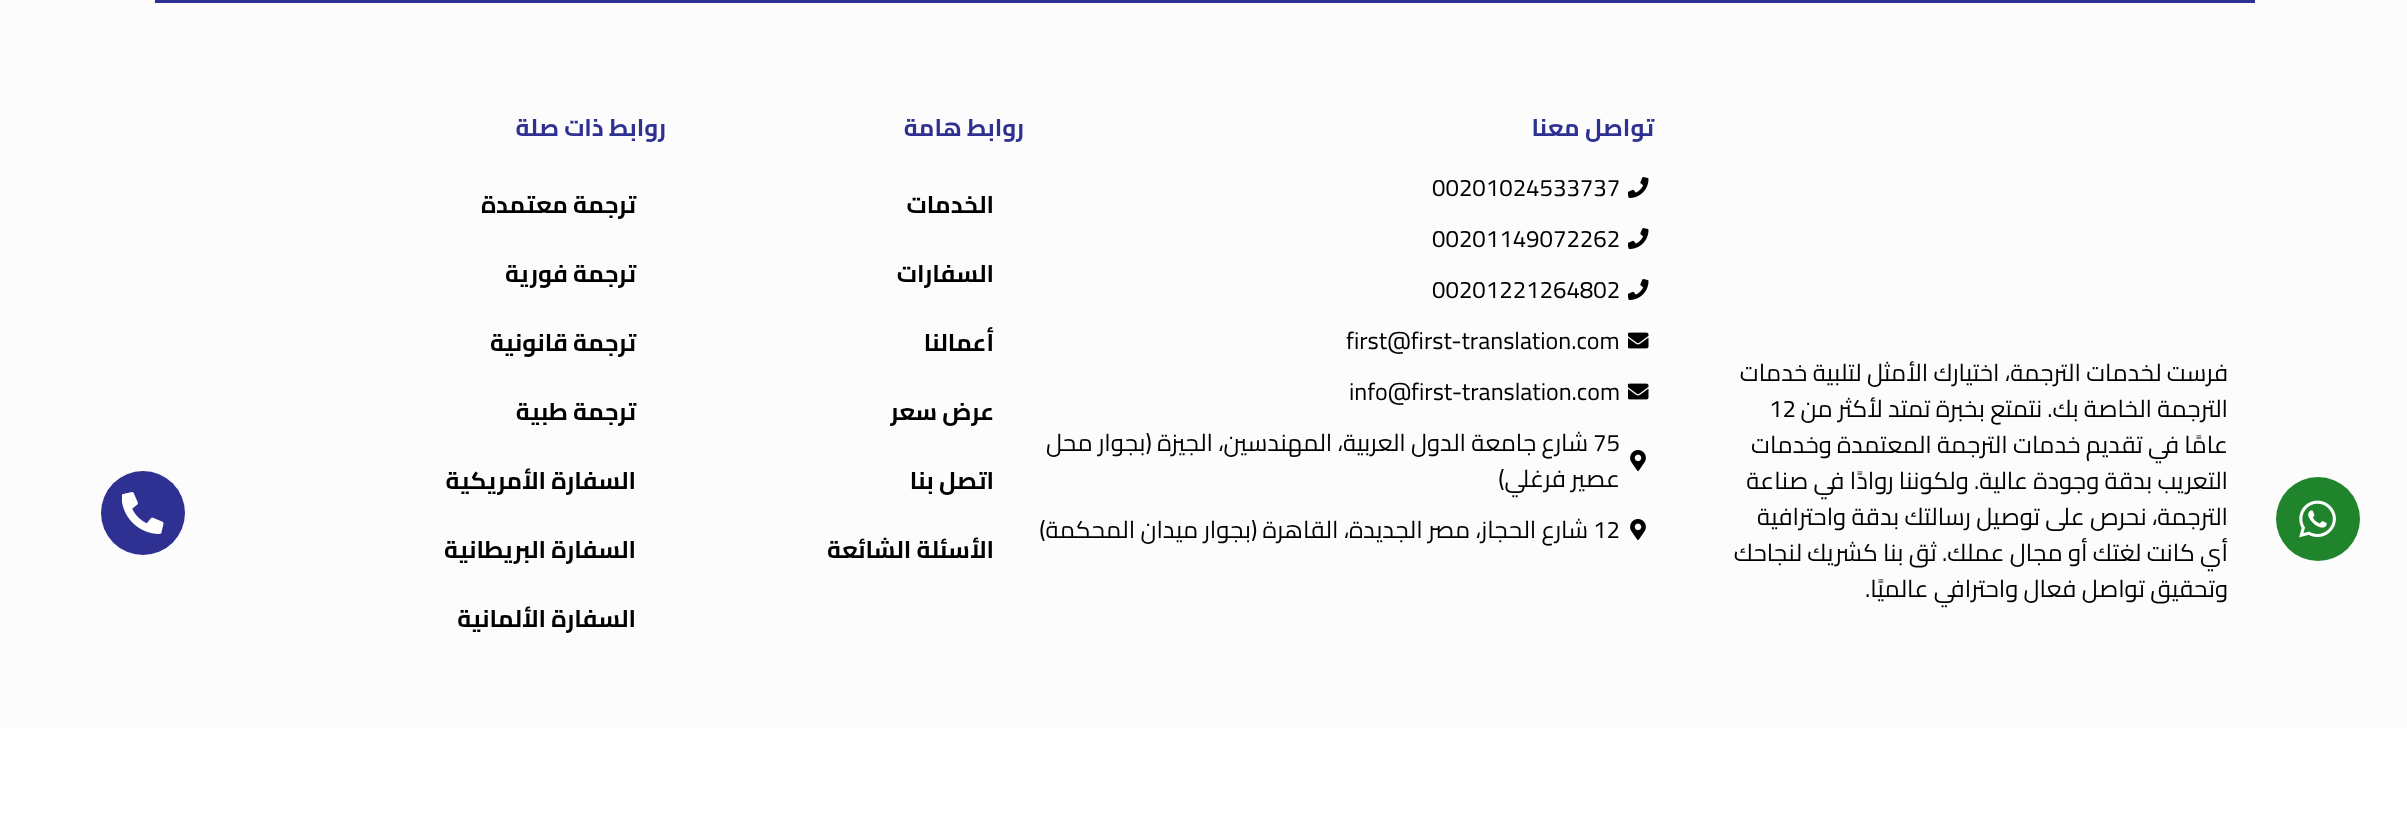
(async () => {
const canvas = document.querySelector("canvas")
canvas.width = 2407
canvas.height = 818
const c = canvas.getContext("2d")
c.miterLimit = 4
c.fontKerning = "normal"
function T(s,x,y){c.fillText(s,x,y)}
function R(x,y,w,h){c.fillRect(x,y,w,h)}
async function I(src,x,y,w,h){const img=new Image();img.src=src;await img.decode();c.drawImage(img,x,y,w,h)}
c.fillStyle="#fff"
R(0,0,2407,818)
c.fillStyle="#fcfcfc"
R(0,0,2407,728)
c.fillStyle="#2f3192"
R(155,0,2100,3)
c.direction="rtl"
c.font="24px Cairo"
c.fillStyle="#000"
T("فرست لخدمات الترجمة، اختيارك الأمثل لتلبية خدمات",2228,381)
T("الترجمة الخاصة بك. نتمتع بخبرة تمتد لأكثر من",2228,417)
c.direction="ltr"
T("12",1769,417)
c.direction="rtl"
T("عامًا في تقديم خدمات الترجمة المعتمدة وخدمات",2228,453)
T("التعريب بدقة وجودة عالية. ولكوننا روادًا في صناعة",2228,489)
T("الترجمة، نحرص على توصيل رسالتك بدقة واحترافية",2228,525)
T("أي كانت لغتك أو مجال عملك. ثق بنا كشريك لنجاحك",2228,561)
T("وتحقيق تواصل فعال واحترافي عالميًا.",2228,597)
c.font="bold 24px Cairo"
c.fillStyle="#2f3192"
T("تواصل معنا",1654,136)
await I("1.png",1628,177,21,21)
c.direction="ltr"
c.font="24px Cairo"
c.fillStyle="#000"
T("00201024533737",1432,196)
await I("1.png",1628,228,21,21)
T("00201149072262",1432,247)
await I("1.png",1628,279,21,21)
T("00201221264802",1432,298)
await I("2.png",1628,332,21,17)
T("first@first-translation.com",1346,349)
await I("2.png",1628,383,21,17)
T("info@first-translation.com",1349,400)
await I("3.png",1630,450,16,21)
T("75",1593,451)
c.direction="rtl"
T("شارع جامعة الدول العربية، المهندسين، الجيزة (بجوار محل",1588,451)
T("عصير فرغلي)",1620,487)
await I("3.png",1630,519,16,21)
c.direction="ltr"
T("12",1593,538)
c.direction="rtl"
T("شارع الحجاز، مصر الجديدة، القاهرة (بجوار ميدان المحكمة)",1588,538)
c.font="bold 24px Cairo"
c.fillStyle="#2f3192"
T("روابط هامة",1024,136)
c.fillStyle="#000"
T("الخدمات",994,213)
T("السفارات",994,282)
T("أعمالنا",994,351)
T("عرض سعر",994,420)
T("اتصل بنا",994,489)
T("الأسئلة الشائعة",994,558)
c.fillStyle="#2f3192"
T("روابط ذات صلة",666,136)
c.fillStyle="#000"
T("ترجمة معتمدة",636,213)
T("ترجمة فورية",636,282)
T("ترجمة قانونية",636,351)
T("ترجمة طبية",636,420)
T("السفارة الأمريكية",636,489)
T("السفارة البريطانية",636,558)
T("السفارة الألمانية",636,627)
c.fillStyle="#20842d"
c.beginPath()
c.arc(2318,519,42,0,7)
c.fill()
await I("4.png",2299,500,37,38)
c.fillStyle="#2f3192"
c.beginPath()
c.arc(143,513,42,0,7)
c.fill()
await I("5.png",122,492,42,42)
})()
